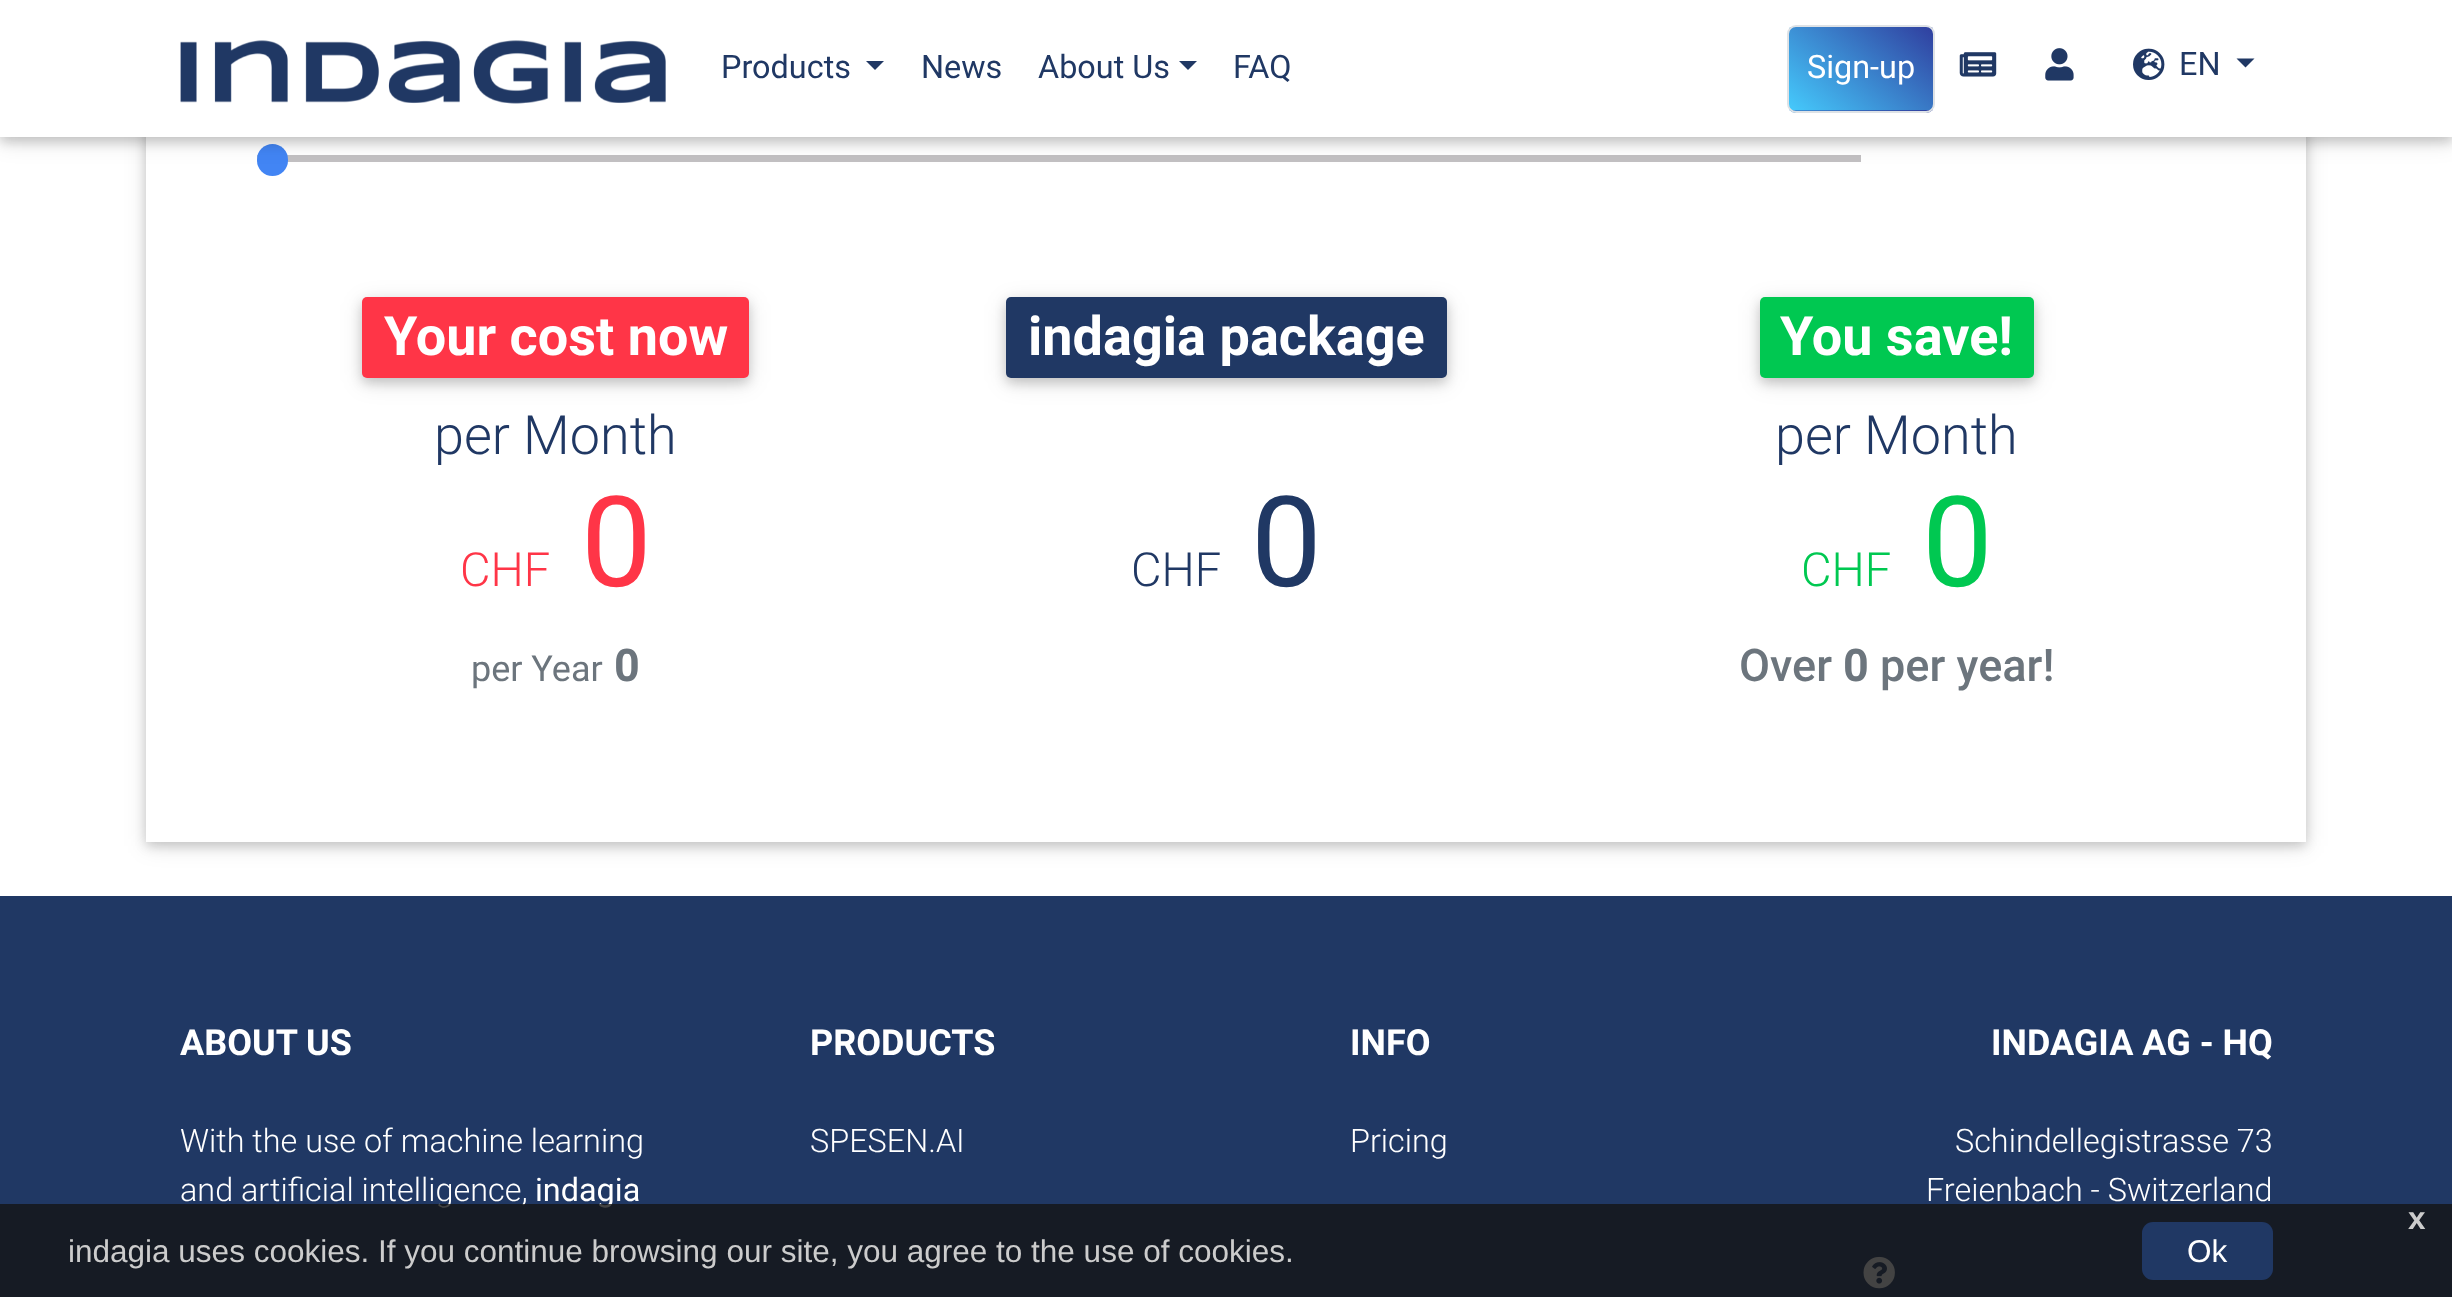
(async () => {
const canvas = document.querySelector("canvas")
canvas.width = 2452
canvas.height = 1297
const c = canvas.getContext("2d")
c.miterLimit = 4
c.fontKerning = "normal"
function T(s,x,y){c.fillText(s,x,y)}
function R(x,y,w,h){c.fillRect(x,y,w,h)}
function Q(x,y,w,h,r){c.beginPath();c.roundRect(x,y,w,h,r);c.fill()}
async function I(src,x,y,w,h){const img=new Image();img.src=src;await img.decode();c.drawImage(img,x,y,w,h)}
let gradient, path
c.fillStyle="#fff"
R(0,0,2452,1297)
c.save()
path = new Path2D("M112 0h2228v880h-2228zm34-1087h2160v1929h-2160z")
c.clip(path,"evenodd")
c.fillStyle="#0000001f"
c.filter="blur(11px)"
c.beginPath()
c.rect(146,-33,2160,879)
c.fill()
c.filter="none"
c.restore()
c.save()
path = new Path2D("M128 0h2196v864h-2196zm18-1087h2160v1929h-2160z")
c.clip(path,"evenodd")
c.fillStyle="#00000029"
c.filter="blur(5.5px)"
c.beginPath()
c.rect(146,-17,2160,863)
c.fill()
c.filter="none"
c.restore()
c.fillStyle="#c2c0c2"
R(257,155,1604,7)
c.fillStyle="#4285f4"
Q(257,144,31,32,15.5)
c.fillStyle="#0000001f"
c.filter="blur(11px)"
c.beginPath()
c.rect(0,5,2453,137)
c.fill()
c.filter="none"
c.fillStyle="#00000029"
c.filter="blur(5.5px)"
c.beginPath()
c.rect(0,5,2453,137)
c.fill()
c.filter="none"
c.fillStyle="#fff"
R(0,0,2452,137)
await I("1.png",180,40,486,64)
c.font="32.4px Roboto"
c.fillStyle="#203864"
T("Products",721,78)
path = new Path2D("M866 61h18l-9 9z")
c.fill(path)
T("News",921,78)
T("About Us",1038,78)
path = new Path2D("M1179 61h18l-9 9z")
c.fill(path)
T("FAQ",1233,78)
c.save()
c.beginPath()
c.roundRect(1787,25,148,88,9)
c.clip()
gradient = c.createLinearGradient(1811,129,1911,9)
gradient.addColorStop(0,"#45cafc")
gradient.addColorStop(1,"#303f9f")
c.fillStyle = gradient
R(1789,27,144,83)
gradient = c.createLinearGradient(1811,212,1911,92)
gradient.addColorStop(0,"#45cafc")
gradient.addColorStop(1,"#303f9f")
c.fillStyle = gradient
R(1789,110,144,3)
c.restore()
c.beginPath()
c.roundRect(1788,26,146,86,8)
c.strokeStyle="#dee2e6"
c.lineWidth=2
c.stroke()
c.fillStyle="#fff"
T("Sign-up",1807,78)
await I("2.png",1959,52,38,25)
await I("3.png",2045,48,29,33)
await I("4.png",2133,48,32,32)
c.fillStyle="#203864"
T("EN",2179,75)
path = new Path2D("M2236.5 58.5h18l-9 9z")
c.fill(path)
c.fillStyle="#0000001f"
c.filter="blur(11px)"
c.beginPath()
c.roundRect(362,302,387,81,5)
c.fill()
c.filter="none"
c.fillStyle="#00000029"
c.filter="blur(5.5px)"
c.beginPath()
c.roundRect(362,302,387,81,5)
c.fill()
c.filter="none"
c.fillStyle="#ff3547"
Q(362,297,387,81,5)
c.font="bold 54px Roboto"
c.fillStyle="#fff"
T("Your cost now",384,355)
c.font="300 54px Roboto"
c.fillStyle="#203864"
T("per Month",434,454)
c.font="300 47px Roboto"
c.fillStyle="#ff3547"
T("CHF",460,586)
c.font="126px Roboto"
T("0",581,586)
c.font="36px Roboto"
c.fillStyle="#6c757d"
T("per Year",471,681)
c.font="bold 45px Roboto"
T("0",614,681)
c.fillStyle="#0000001f"
c.filter="blur(11px)"
c.beginPath()
c.roundRect(1006,302,441,81,5)
c.fill()
c.filter="none"
c.fillStyle="#00000029"
c.filter="blur(5.5px)"
c.beginPath()
c.roundRect(1006,302,441,81,5)
c.fill()
c.filter="none"
c.fillStyle="#203864"
Q(1006,297,441,81,5)
c.font="bold 54px Roboto"
c.fillStyle="#fff"
T("indagia package",1028,355)
c.font="300 47px Roboto"
c.fillStyle="#203864"
T("CHF",1131,586)
c.font="126px Roboto"
T("0",1251,586)
c.fillStyle="#0000001f"
c.filter="blur(11px)"
c.beginPath()
c.roundRect(1760,302,274,81,5)
c.fill()
c.filter="none"
c.fillStyle="#00000029"
c.filter="blur(5.5px)"
c.beginPath()
c.roundRect(1760,302,274,81,5)
c.fill()
c.filter="none"
c.fillStyle="#00c851"
Q(1760,297,274,81,5)
c.font="bold 54px Roboto"
c.fillStyle="#fff"
T("You save!",1780,355)
c.font="300 54px Roboto"
c.fillStyle="#203864"
T("per Month",1775,454)
c.font="300 47px Roboto"
c.fillStyle="#00c851"
T("CHF",1801,586)
c.font="126px Roboto"
T("0",1922,586)
c.font="500 45px Roboto"
c.fillStyle="#6c757d"
T("Over",1739,681)
c.font="bold 45px Roboto"
T("0",1843,681)
c.font="500 45px Roboto"
T("per year!",1880,681)
c.fillStyle="#203864"
R(0,896,2452,401)
c.font="bold 36px Roboto"
c.fillStyle="#fff"
T("ABOUT US",180,1055)
c.font="300 32.4px Roboto"
T("With the use of machine learning",180,1152)
T("and artificial intelligence,",180,1201)
c.font="32.4px Roboto"
T("indagia",535,1201)
c.font="bold 36px Roboto"
T("PRODUCTS",810,1055)
c.font="300 32.4px Roboto"
T("SPESEN.AI",810,1152)
c.font="bold 36px Roboto"
T("INFO",1350,1055)
c.font="300 32.4px Roboto"
T("Pricing",1350,1152)
c.font="bold 36px Roboto"
T("INDAGIA AG - HQ",1991,1055)
c.font="300 32.4px Roboto"
T("Schindellegistrasse 73",1955,1152)
T("Freienbach - Switzerland",1926,1201)
await I("5.png",1863,1256,32,33)
c.fillStyle="#141414cc"
R(0,1204,2452,93)
c.font="bold 31.5px Liberation Sans"
c.fillStyle="#ccc"
T("x",2408,1229)
c.font="31.5px Liberation Sans"
T("indagia uses cookies. If you continue browsing our site, you agree to the use of cookies.",68,1262)
c.fillStyle="#203864"
Q(2142,1222,131,58,11)
c.fillStyle="#fff"
T("Ok",2187,1262)
})()
